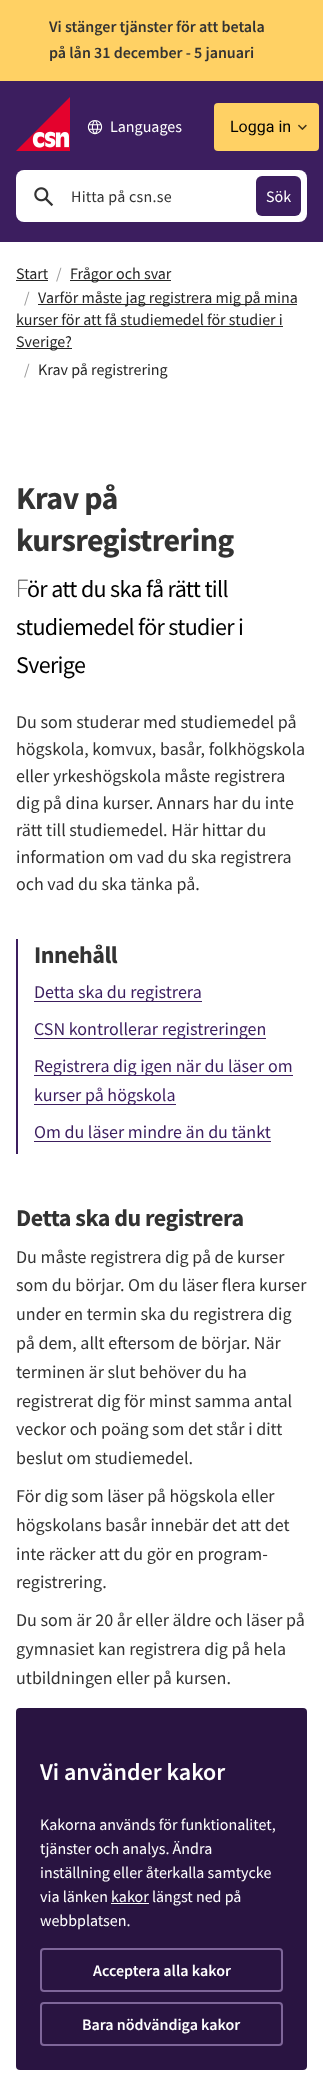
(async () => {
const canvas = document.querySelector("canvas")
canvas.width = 323
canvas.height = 2086
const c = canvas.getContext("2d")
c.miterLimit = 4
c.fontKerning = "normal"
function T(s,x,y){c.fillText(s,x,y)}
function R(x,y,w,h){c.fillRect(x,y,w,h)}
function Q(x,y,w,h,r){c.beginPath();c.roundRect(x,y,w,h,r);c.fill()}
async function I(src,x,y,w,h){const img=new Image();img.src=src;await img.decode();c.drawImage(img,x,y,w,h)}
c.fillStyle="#ffd164"
R(0,0,323,2086)
c.font="600 16px Source Sans Pro"
c.fillStyle="#333"
T("Vi stänger tjänster för att betala",49,32)
T("på lån 31 december - 5 januari",49,58)
c.fillStyle="#3c1e5f"
R(0,81,323,161)
await I("1.png",16,97,54,54)
await I("2.png",87,120,16,15)
c.font="16px Source Sans Pro"
c.fillStyle="#fff"
T("Languages",110,132)
c.fillStyle="#ffd164"
Q(214,103,105,48,4)
c.font="16px Roboto"
c.fillStyle="#000"
T("Logga in",230,132)
await I("3.png",298,124,9,6)
c.fillStyle="#fff"
Q(16,170,291,52,8)
await I("4.png",34,187,20,20)
c.letterSpacing="0.25px"
c.font="16px Source Sans Pro"
c.fillStyle="#333"
T("Hitta på csn.se",71,202)
c.fillStyle="#3c1e5f"
Q(256,176,45,40,6)
c.letterSpacing="0px"
c.fillStyle="#fff"
T("Sök",266,202)
R(0,242,323,1844)
c.fillStyle="#262626"
T("Start",16,279)
R(16,280,32,1)
c.fillStyle="#999"
T("/",56,279)
c.fillStyle="#262626"
R(70,280,101,1)
T("Frågor och svar",70,279)
c.fillStyle="#999"
T("/",24,303)
c.fillStyle="#262626"
R(38,304,259,1)
T("Varför måste jag registrera mig på mina",38,303)
T("kurser för att få studiemedel för studier i",16,325)
R(16,326,267,1)
R(16,348,56,1)
T("Sverige?",16,347)
c.fillStyle="#999"
T("/",24,375)
c.fillStyle="#262626"
T("Krav på registrering",38,375)
c.letterSpacing="-0.65px"
c.font="bold 32px Source Sans Pro"
c.fillStyle="#333"
T("Krav på",16,509)
T("kursregistrering",16,551)
c.font="100 24px Noto Sans"
c.fillStyle="#000"
T("F",16,597)
c.font="24px Source Sans Pro"
T("ör att du ska få rätt till",27,597)
T("studiemedel för studier i",16,635)
T("Sverige",16,673)
c.letterSpacing="0px"
c.font="18px Source Sans Pro"
c.fillStyle="#333"
T("Du som studerar med studiemedel på",16,728)
T("högskola, komvux, basår, folkhögskola",16,755)
T("eller yrkeshögskola måste registrera",16,782)
T("dig på dina kurser. Annars har du inte",16,809)
T("rätt till studiemedel. Här hittar du",16,836)
T("information om vad du ska registrera",16,863)
T("och vad du ska tänka på.",16,890)
c.fillStyle="#3c1e5f"
R(16,939,2,215)
c.letterSpacing="-0.5px"
c.font="bold 24px Source Sans Pro"
c.fillStyle="#333"
T("Innehåll",34,963)
c.fillStyle="#3c1e5f"
R(34,1001,168,1)
c.letterSpacing="0px"
c.font="18px Source Sans Pro"
T("Detta ska du registrera",34,998)
R(34,1038,232,1)
T("CSN kontrollerar registreringen",34,1035)
R(34,1075,259,1)
T("Registrera dig igen när du läser om",34,1072)
R(34,1104,142,1)
T("kurser på högskola",34,1101)
T("Om du läser mindre än du tänkt",34,1138)
R(34,1141,237,1)
c.letterSpacing="-0.5px"
c.font="bold 24px Source Sans Pro"
c.fillStyle="#333"
T("Detta ska du registrera",16,1226)
c.letterSpacing="0px"
c.font="18px Source Sans Pro"
T("Du måste registrera dig på de kurser",16,1263)
T("som du börjar. Om du läser flera kurser",16,1291)
T("under en termin ska du registrera dig",16,1320)
T("på dem, allt eftersom de börjar. När",16,1349)
T("terminen är slut behöver du ha",16,1378)
T("registrerat dig för minst samma antal",16,1407)
T("veckor och poäng som det står i ditt",16,1435)
T("beslut om studiemedel.",16,1464)
T("För dig som läser på högskola eller",16,1502)
T("högskolans basår innebär det att det",16,1531)
T("inte räcker att du gör en program-",16,1560)
T("registrering.",16,1588)
T("Du som är 20 år eller äldre och läser på",16,1626)
T("gymnasiet kan registrera dig på hela",16,1655)
T("utbildningen eller på kursen.",16,1684)
c.fillStyle="#291441"
Q(16,1708,291,362,4)
c.font="600 24px Source Sans Pro"
c.fillStyle="#fff"
T("Vi använder kakor",40,1780)
c.font="16px Source Sans Pro"
T("Kakorna används för funktionalitet,",40,1830)
T("tjänster och analys. Ändra",40,1854)
T("inställning eller återkalla samtycke",40,1878)
T("via länken kakor längst ned på",40,1902)
R(111,1903,38,1)
T("webbplatsen.",40,1926)
c.beginPath()
c.roundRect(41,1949,241,42,3)
c.strokeStyle="#7e6699"
c.lineWidth=2
c.stroke()
c.font="600 16px Source Sans Pro"
T("Acceptera alla kakor",93,1976)
c.beginPath()
c.roundRect(41,2003,241,42,3)
c.stroke()
T("Bara nödvändiga kakor",82,2030)
})()
